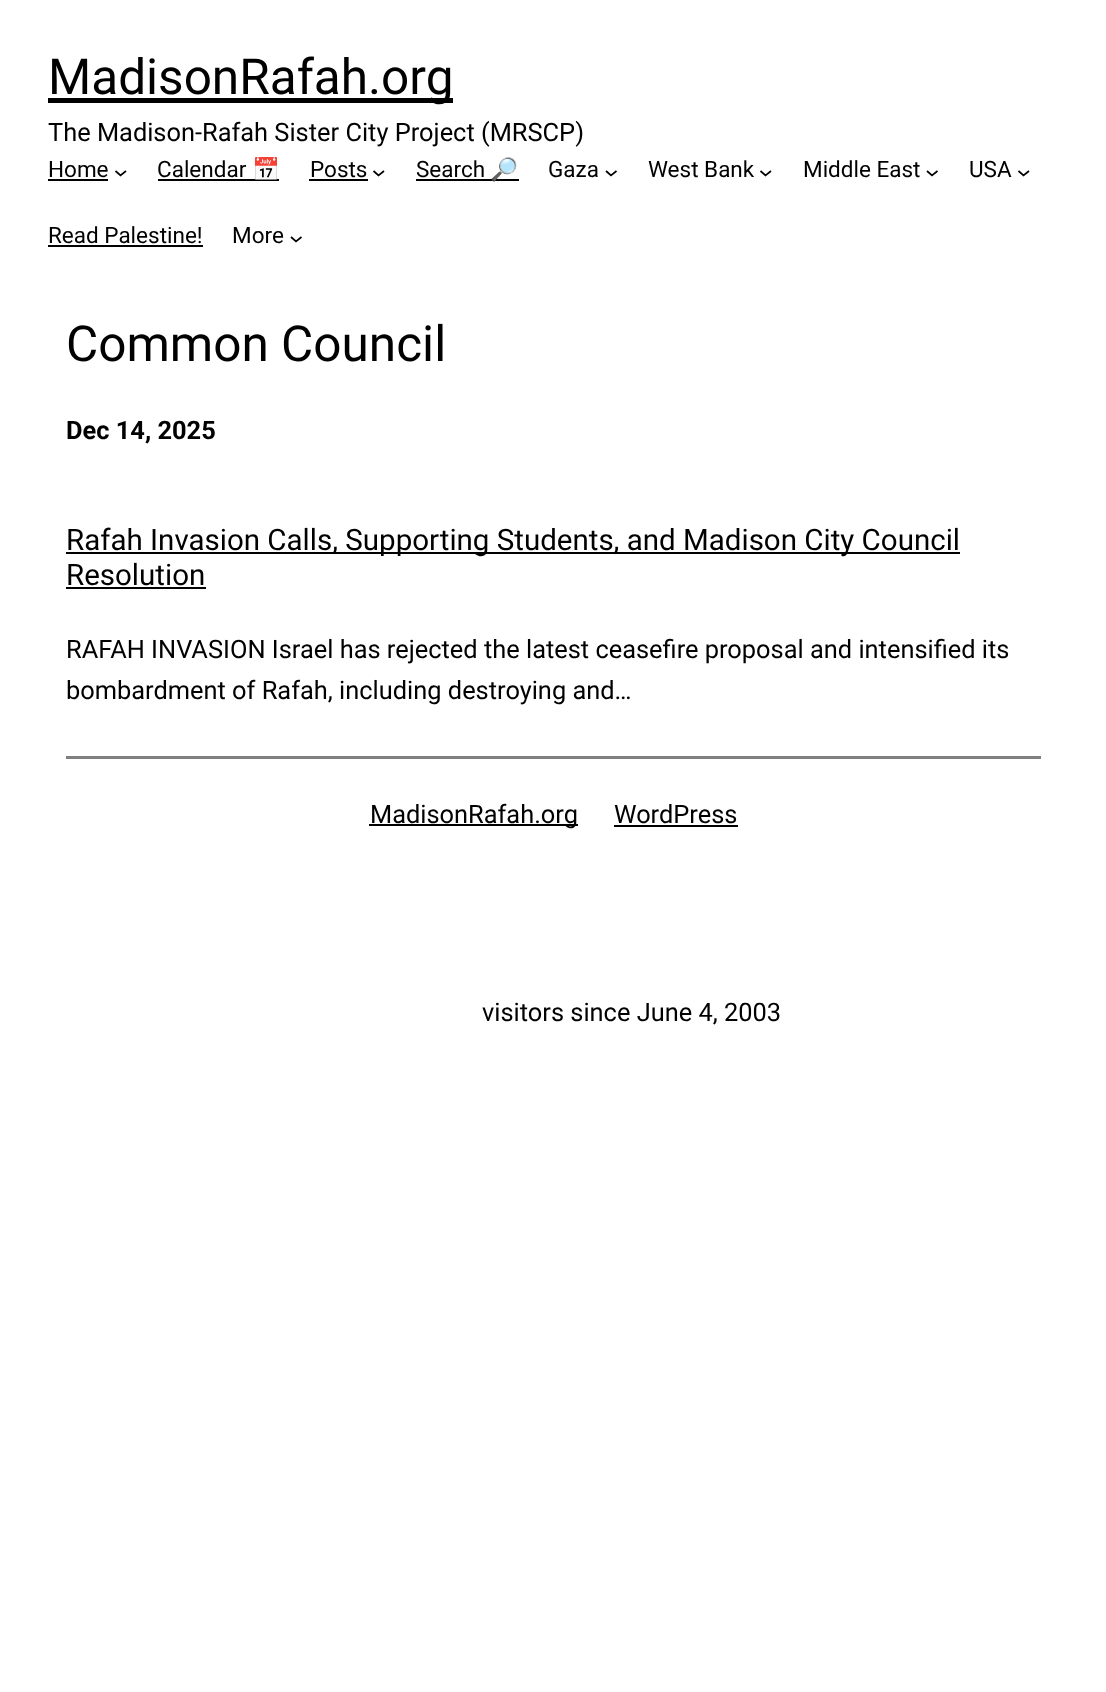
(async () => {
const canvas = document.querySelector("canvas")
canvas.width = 1106
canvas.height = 1692
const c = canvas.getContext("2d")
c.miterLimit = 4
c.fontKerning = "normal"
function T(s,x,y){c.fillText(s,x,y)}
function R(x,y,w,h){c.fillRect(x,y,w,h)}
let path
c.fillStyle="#fff"
R(0,0,1106,1692)
c.fillStyle="#000"
R(48,98,405,5)
c.font="49.5px Roboto"
T("MadisonRafah.org",48,94)
c.font="25.4px Roboto"
T("The Madison-Rafah Sister City Project (MRSCP)",48,141)
c.font="22.5px Roboto"
T("Home",48,177)
R(48,179,60,2)
path = new Path2D("M115.5 171l5 4.5l5.5-4.5")
c.strokeStyle="#000"
c.lineWidth=1.7
c.stroke(path)
T("Calendar",157,177)
R(158,179,121,2)
c.font="22.5px Noto Color Emoji"
T("📅",252,177)
c.font="22.5px Roboto"
T("Posts",310,177)
R(309,179,59,2)
path = new Path2D("M373.5 171l5 4.5l5.5-4.5")
c.stroke(path)
T("Search",416,177)
R(416,179,103,2)
c.font="22.5px Noto Color Emoji"
T("🔎",490,177)
c.font="22.5px Roboto"
T("Gaza",548,177)
path = new Path2D("M606 171l5 4.5l5.5-4.5")
c.stroke(path)
T("West Bank",648,177)
path = new Path2D("M760.5 171l5 4.5l5.5-4.5")
c.stroke(path)
T("Middle East",803,177)
path = new Path2D("M927 171l5 4.5l5.5-4.5")
c.stroke(path)
T("USA",969,177)
path = new Path2D("M1018.5 171l5 4.5l5.5-4.5")
c.stroke(path)
T("Read Palestine!",48,243)
R(48,245,155,2)
T("More",232,243)
path = new Path2D("M291 237l5 4.5l5.5-4.5")
c.stroke(path)
c.font="49.5px Roboto"
T("Common Council",66,361)
c.font="bold 25.4px Roboto"
T("Dec 14, 2025",66,439)
R(66,552,894,2)
c.font="29.5px Roboto"
T("Rafah Invasion Calls, Supporting Students, and Madison City Council",66,550)
T("Resolution",66,585)
R(66,587,140,2)
c.font="25.4px Roboto"
T("RAFAH INVASION Israel has rejected the latest ceasefire proposal and intensified its",66,658)
T("bombardment of Rafah, including destroying and…",66,699)
c.fillStyle="#808080"
R(66,756,975,3)
c.fillStyle="#000"
R(369,824,209,2)
T("MadisonRafah.org",370,823)
T("WordPress",614,823)
R(614,825,124,2)
T("visitors since June 4, 2003",482,1021)
})()
